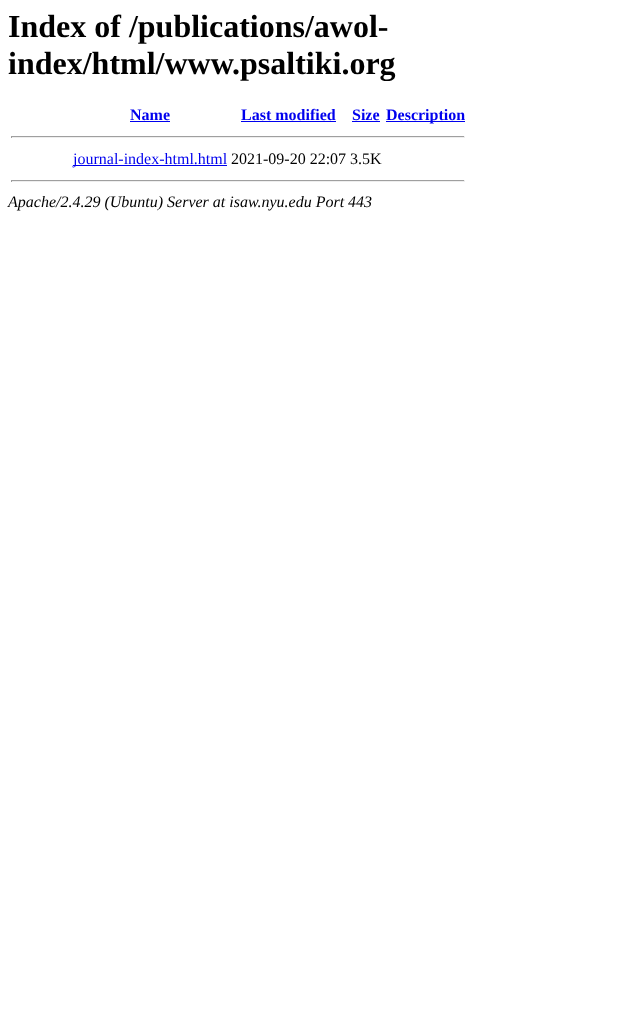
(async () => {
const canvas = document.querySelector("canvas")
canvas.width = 617
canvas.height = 1010
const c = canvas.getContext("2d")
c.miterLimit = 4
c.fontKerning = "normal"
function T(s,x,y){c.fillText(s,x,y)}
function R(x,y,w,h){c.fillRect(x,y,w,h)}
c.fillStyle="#fff"
R(0,0,617,1010)
c.font="bold 32px Liberation Serif"
c.fillStyle="#000"
T("Index of /publications/awol-",8,37)
T("index/html/www.psaltiki.org",8,74)
c.font="bold 16px Liberation Serif"
c.fillStyle="#00e"
T("Name",130,120)
R(130,121,40,1)
T("Last modified",241,120)
R(241,121,95,1)
T("Size",352,120)
R(352,121,28,1)
R(386,121,79,1)
T("Description",386,120)
c.fillStyle="#9f9f9f"
R(11,136,454,1)
c.fillStyle="#eee"
R(464,136,1,2)
R(11,137,454,1)
c.fillStyle="#9f9f9f"
R(11,136,1,2)
c.fillStyle="#00e"
R(73,165,154,1)
c.font="16px Liberation Serif"
T("journal-index-html.html",73,164)
c.fillStyle="#000"
T("2021-09-20 22:07 3.5K",231,164)
c.fillStyle="#9f9f9f"
R(11,180,454,1)
c.fillStyle="#eee"
R(464,180,1,2)
R(11,181,454,1)
c.fillStyle="#9f9f9f"
R(11,180,1,2)
c.font="italic 16px Liberation Serif"
c.fillStyle="#000"
T("Apache/2.4.29 (Ubuntu) Server at isaw.nyu.edu Port 443",8,207)
})()
